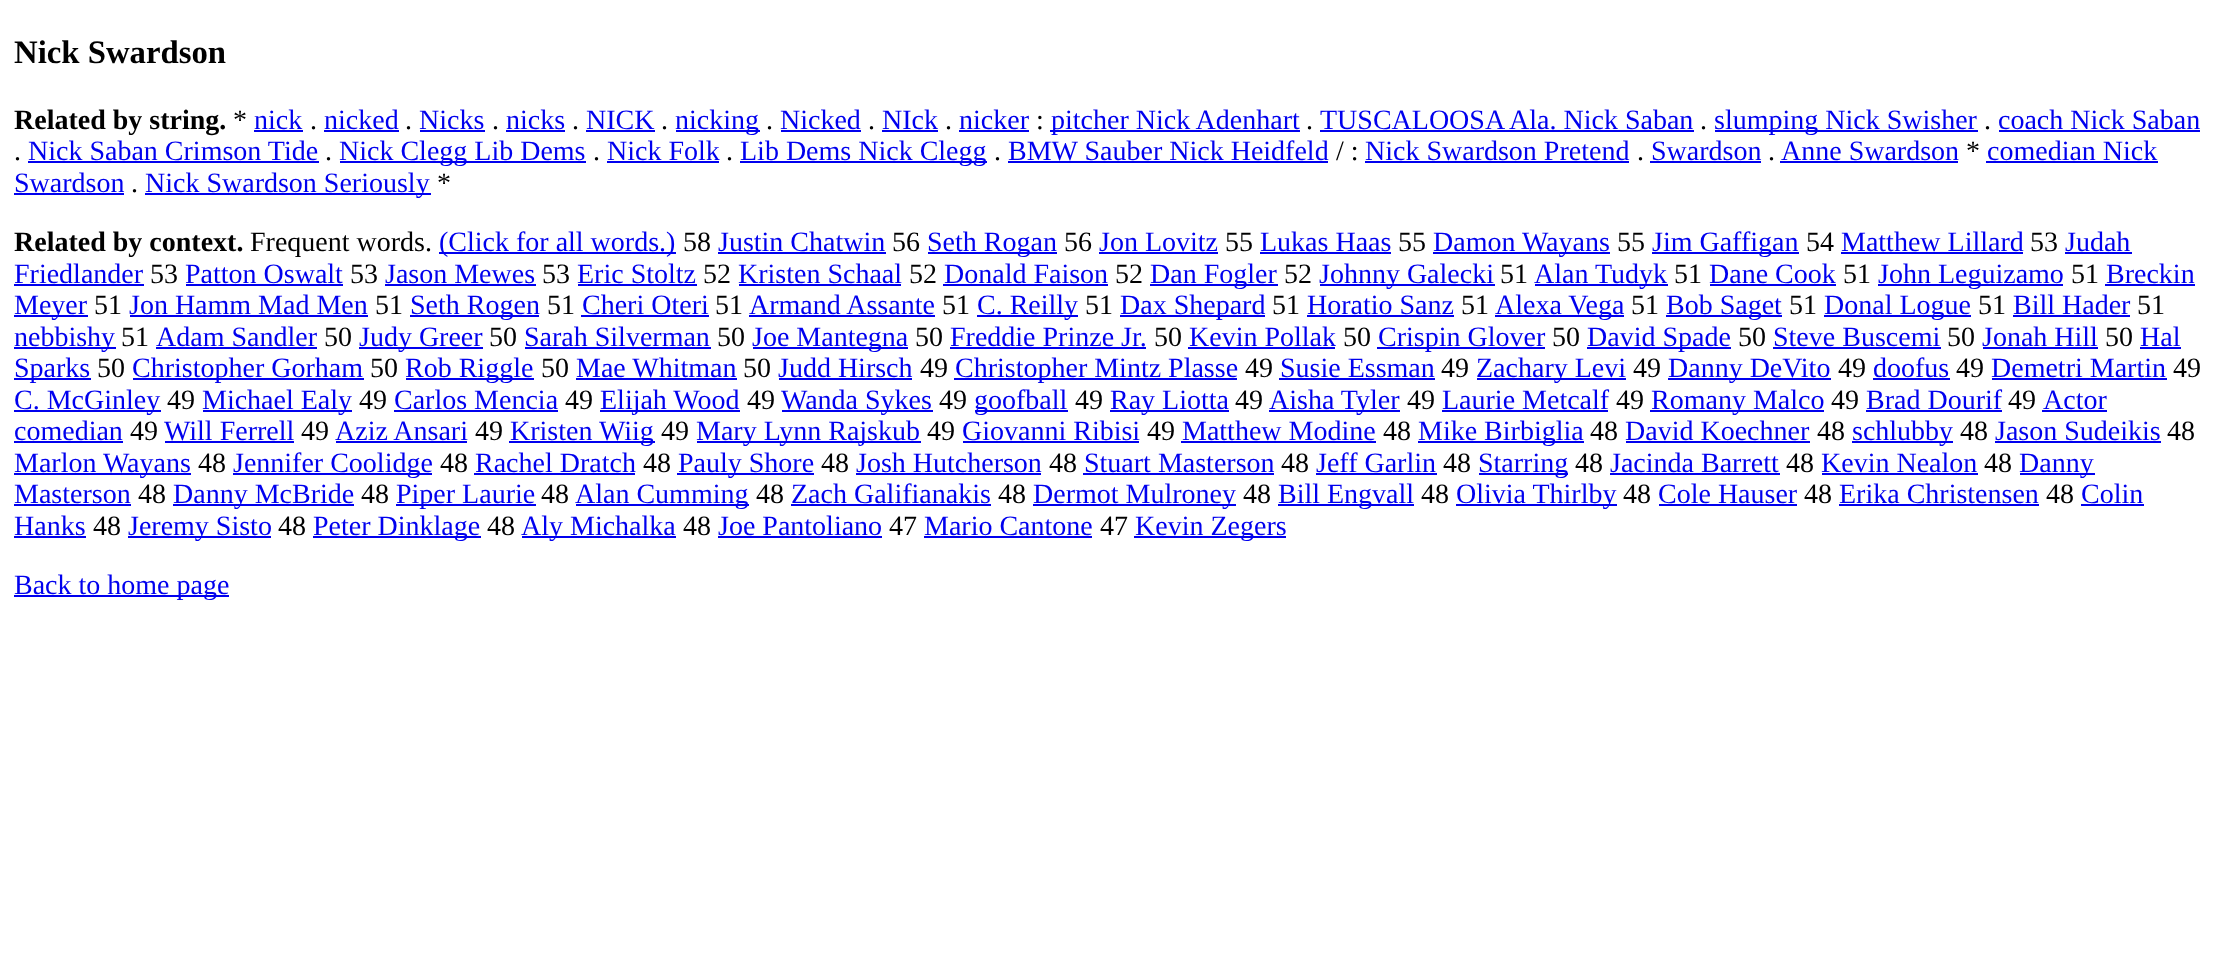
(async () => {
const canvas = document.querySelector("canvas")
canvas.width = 2223
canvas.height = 960
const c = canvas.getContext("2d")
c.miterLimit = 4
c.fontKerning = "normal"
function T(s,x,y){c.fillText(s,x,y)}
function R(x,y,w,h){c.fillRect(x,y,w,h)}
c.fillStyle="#fff"
R(0,0,2223,960)
c.font="bold 32.75px Liberation Serif"
c.fillStyle="#000"
T("Nick Swardson",14,63)
c.font="bold 28px Liberation Serif"
T("Related by string.",14,129)
c.font="28px Liberation Serif"
T("*",233,129)
c.fillStyle="#00e"
T("nick",254,129)
R(254,130,49,2)
c.fillStyle="#000"
T(".",310,129)
c.fillStyle="#00e"
T("nicked",324,129)
R(324,130,75,2)
c.fillStyle="#000"
T(".",405,129)
c.fillStyle="#00e"
T("Nicks",419,129)
R(420,130,65,2)
c.fillStyle="#000"
T(".",492,129)
c.fillStyle="#00e"
T("nicks",506,129)
R(506,130,59,2)
c.fillStyle="#000"
T(".",572,129)
c.fillStyle="#00e"
T("NICK",586,129)
R(586,130,69,2)
c.fillStyle="#000"
T(".",661,129)
c.fillStyle="#00e"
R(676,130,84,2)
T("nicking",675,129)
c.fillStyle="#000"
T(".",766,129)
c.fillStyle="#00e"
T("Nicked",780,129)
R(781,130,80,2)
c.fillStyle="#000"
T(".",868,129)
c.fillStyle="#00e"
T("NIck",882,129)
R(882,130,56,2)
c.fillStyle="#000"
T(".",945,129)
c.fillStyle="#00e"
T("nicker",959,129)
R(959,130,70,2)
c.fillStyle="#000"
T(":",1036,129)
c.fillStyle="#00e"
R(1050,130,250,2)
T("pitcher Nick Adenhart",1051,129)
c.fillStyle="#000"
T(".",1306,129)
c.fillStyle="#00e"
T("TUSCALOOSA Ala. Nick Saban",1320,129)
R(1320,130,374,2)
c.fillStyle="#000"
T(".",1700,129)
c.fillStyle="#00e"
R(1715,130,263,2)
T("slumping Nick Swisher",1714,129)
c.fillStyle="#000"
T(".",1984,129)
c.fillStyle="#00e"
T("coach Nick Saban",1998,129)
R(1999,130,201,2)
T("Nick Saban Crimson Tide",28,160)
R(28,161,291,2)
R(340,161,246,2)
T("Nick Clegg Lib Dems",339,160)
T("Nick Folk",607,160)
R(607,161,112,2)
R(740,161,247,2)
T("Lib Dems Nick Clegg",740,160)
T("BMW Sauber Nick Heidfeld",1008,160)
R(1008,161,320,2)
c.fillStyle="#000"
T("/ :",1336,160)
c.fillStyle="#00e"
T("Nick Swardson Pretend",1365,160)
R(1365,161,264,2)
T("Swardson",1651,160)
R(1650,161,111,2)
T("Anne Swardson",1781,160)
R(1780,161,178,2)
c.fillStyle="#000"
T("*",1966,160)
c.fillStyle="#00e"
T("comedian Nick",1987,160)
R(1986,161,172,2)
c.fillStyle="#000"
T(".",14,160)
T(".",325,160)
T(".",593,160)
T(".",726,160)
T(".",994,160)
T(".",1637,160)
T(".",1768,160)
c.fillStyle="#00e"
T("Swardson",14,192)
R(14,193,110,2)
R(145,193,286,2)
T("Nick Swardson Seriously",145,192)
c.fillStyle="#000"
T("*",437,192)
T(".",131,192)
c.font="bold 28px Liberation Serif"
T("Related by context.",14,251)
c.font="28px Liberation Serif"
T("Frequent words.",250,251)
c.fillStyle="#00e"
R(439,252,237,2)
T("(Click for all words.)",439,251)
c.fillStyle="#000"
T("58",683,251)
c.fillStyle="#00e"
T("Justin Chatwin",718,251)
R(718,252,168,2)
c.fillStyle="#000"
T("56",892,251)
c.fillStyle="#00e"
R(928,252,129,2)
T("Seth Rogan",927,251)
c.fillStyle="#000"
T("56",1064,251)
c.fillStyle="#00e"
T("Jon Lovitz",1099,251)
R(1099,252,119,2)
c.fillStyle="#000"
T("55",1225,251)
c.fillStyle="#00e"
T("Lukas Haas",1260,251)
R(1260,252,131,2)
c.fillStyle="#000"
T("55",1398,251)
c.fillStyle="#00e"
R(1433,252,177,2)
T("Damon Wayans",1433,251)
c.fillStyle="#000"
T("55",1617,251)
c.fillStyle="#00e"
R(1652,252,147,2)
T("Jim Gaffigan",1652,251)
c.fillStyle="#000"
T("54",1806,251)
c.fillStyle="#00e"
T("Matthew Lillard",1841,251)
R(1841,252,182,2)
c.fillStyle="#000"
T("53",2030,251)
c.fillStyle="#00e"
T("Judah",2065,251)
R(2065,252,67,2)
T("Friedlander",14,283)
R(14,284,130,2)
c.fillStyle="#000"
T("53",150,283)
c.fillStyle="#00e"
T("Patton Oswalt",185,283)
R(186,284,157,2)
c.fillStyle="#000"
T("53",350,283)
c.fillStyle="#00e"
T("Jason Mewes",385,283)
R(385,284,151,2)
c.fillStyle="#000"
T("53",542,283)
c.fillStyle="#00e"
T("Eric Stoltz",577,283)
R(578,284,119,2)
c.fillStyle="#000"
T("52",703,283)
c.fillStyle="#00e"
T("Kristen Schaal",738,283)
R(739,284,162,2)
c.fillStyle="#000"
T("52",909,283)
c.fillStyle="#00e"
T("Donald Faison",944,283)
R(943,284,165,2)
c.fillStyle="#000"
T("52",1115,283)
c.fillStyle="#00e"
R(1150,284,128,2)
T("Dan Fogler",1150,283)
c.fillStyle="#000"
T("52",1284,283)
c.fillStyle="#00e"
R(1320,284,175,2)
T("Johnny Galecki",1319,283)
c.fillStyle="#000"
T("51",1500,283)
c.fillStyle="#00e"
R(1535,284,133,2)
T("Alan Tudyk",1534,283)
c.fillStyle="#000"
T("51",1674,283)
c.fillStyle="#00e"
T("Dane Cook",1709,283)
R(1710,284,126,2)
c.fillStyle="#000"
T("51",1843,283)
c.fillStyle="#00e"
R(1878,284,185,2)
T("John Leguizamo",1878,283)
c.fillStyle="#000"
T("51",2071,283)
c.fillStyle="#00e"
T("Breckin",2106,283)
R(2105,284,90,2)
R(14,315,74,2)
T("Meyer",14,314)
c.fillStyle="#000"
T("51",94,314)
c.fillStyle="#00e"
T("Jon Hamm Mad Men",129,314)
R(130,315,238,2)
c.fillStyle="#000"
T("51",375,314)
c.fillStyle="#00e"
R(410,315,129,2)
T("Seth Rogen",410,314)
c.fillStyle="#000"
T("51",547,314)
c.fillStyle="#00e"
T("Cheri Oteri",582,314)
R(581,315,128,2)
c.fillStyle="#000"
T("51",715,314)
c.fillStyle="#00e"
T("Armand Assante",749,314)
R(749,315,186,2)
c.fillStyle="#000"
T("51",942,314)
c.fillStyle="#00e"
R(977,315,101,2)
T("C. Reilly",977,314)
c.fillStyle="#000"
T("51",1085,314)
c.fillStyle="#00e"
R(1120,315,145,2)
T("Dax Shepard",1120,314)
c.fillStyle="#000"
T("51",1272,314)
c.fillStyle="#00e"
T("Horatio Sanz",1307,314)
R(1307,315,147,2)
c.fillStyle="#000"
T("51",1461,314)
c.fillStyle="#00e"
R(1495,315,129,2)
T("Alexa Vega",1495,314)
c.fillStyle="#000"
T("51",1631,314)
c.fillStyle="#00e"
R(1666,315,116,2)
T("Bob Saget",1666,314)
c.fillStyle="#000"
T("51",1789,314)
c.fillStyle="#00e"
R(1824,315,147,2)
T("Donal Logue",1824,314)
c.fillStyle="#000"
T("51",1978,314)
c.fillStyle="#00e"
T("Bill Hader",2013,314)
R(2013,315,117,2)
c.fillStyle="#000"
T("51",2137,314)
c.fillStyle="#00e"
R(14,347,102,2)
T("nebbishy",14,346)
c.fillStyle="#000"
T("51",121,346)
c.fillStyle="#00e"
T("Adam Sandler",156,346)
R(156,347,161,2)
c.fillStyle="#000"
T("50",324,346)
c.fillStyle="#00e"
R(359,347,124,2)
T("Judy Greer",359,346)
c.fillStyle="#000"
T("50",489,346)
c.fillStyle="#00e"
T("Sarah Silverman",524,346)
R(525,347,186,2)
c.fillStyle="#000"
T("50",717,346)
c.fillStyle="#00e"
R(753,347,155,2)
T("Joe Mantegna",752,346)
c.fillStyle="#000"
T("50",915,346)
c.fillStyle="#00e"
T("Freddie Prinze Jr.",950,346)
R(950,347,196,2)
c.fillStyle="#000"
T("50",1154,346)
c.fillStyle="#00e"
T("Kevin Pollak",1189,346)
R(1188,347,147,2)
c.fillStyle="#000"
T("50",1343,346)
c.fillStyle="#00e"
R(1377,347,168,2)
T("Crispin Glover",1378,346)
c.fillStyle="#000"
T("50",1552,346)
c.fillStyle="#00e"
R(1587,347,144,2)
T("David Spade",1587,346)
c.fillStyle="#000"
T("50",1738,346)
c.fillStyle="#00e"
T("Steve Buscemi",1773,346)
R(1773,347,168,2)
c.fillStyle="#000"
T("50",1947,346)
c.fillStyle="#00e"
T("Jonah Hill",1982,346)
R(1983,347,115,2)
c.fillStyle="#000"
T("50",2105,346)
c.fillStyle="#00e"
T("Hal",2140,346)
R(2140,347,41,2)
R(14,378,77,2)
T("Sparks",14,377)
c.fillStyle="#000"
T("50",97,377)
c.fillStyle="#00e"
R(133,378,231,2)
T("Christopher Gorham",132,377)
c.fillStyle="#000"
T("50",370,377)
c.fillStyle="#00e"
R(406,378,128,2)
T("Rob Riggle",405,377)
c.fillStyle="#000"
T("50",541,377)
c.fillStyle="#00e"
T("Mae Whitman",576,377)
R(576,378,161,2)
c.fillStyle="#000"
T("50",743,377)
c.fillStyle="#00e"
T("Judd Hirsch",778,377)
R(779,378,133,2)
c.fillStyle="#000"
T("49",920,377)
c.fillStyle="#00e"
R(954,378,283,2)
T("Christopher Mintz Plasse",955,377)
c.fillStyle="#000"
T("49",1245,377)
c.fillStyle="#00e"
T("Susie Essman",1280,377)
R(1279,378,156,2)
c.fillStyle="#000"
T("49",1441,377)
c.fillStyle="#00e"
R(1477,378,149,2)
T("Zachary Levi",1476,377)
c.fillStyle="#000"
T("49",1633,377)
c.fillStyle="#00e"
R(1668,378,163,2)
T("Danny DeVito",1668,377)
c.fillStyle="#000"
T("49",1838,377)
c.fillStyle="#00e"
T("doofus",1873,377)
R(1873,378,77,2)
c.fillStyle="#000"
T("49",1956,377)
c.fillStyle="#00e"
T("Demetri Martin",1991,377)
R(1992,378,175,2)
c.fillStyle="#000"
T("49",2173,377)
c.fillStyle="#00e"
R(14,410,147,2)
T("C. McGinley",14,409)
c.fillStyle="#000"
T("49",167,409)
c.fillStyle="#00e"
R(203,410,149,2)
T("Michael Ealy",202,409)
c.fillStyle="#000"
T("49",359,409)
c.fillStyle="#00e"
T("Carlos Mencia",394,409)
R(394,410,164,2)
c.fillStyle="#000"
T("49",565,409)
c.fillStyle="#00e"
R(600,410,140,2)
T("Elijah Wood",600,409)
c.fillStyle="#000"
T("49",747,409)
c.fillStyle="#00e"
R(782,410,151,2)
T("Wanda Sykes",781,409)
c.fillStyle="#000"
T("49",939,409)
c.fillStyle="#00e"
R(975,410,93,2)
T("goofball",974,409)
c.fillStyle="#000"
T("49",1075,409)
c.fillStyle="#00e"
R(1110,410,119,2)
T("Ray Liotta",1110,409)
c.fillStyle="#000"
T("49",1235,409)
c.fillStyle="#00e"
R(1269,410,131,2)
T("Aisha Tyler",1269,409)
c.fillStyle="#000"
T("49",1407,409)
c.fillStyle="#00e"
T("Laurie Metcalf",1442,409)
R(1442,410,166,2)
c.fillStyle="#000"
T("49",1616,409)
c.fillStyle="#00e"
R(1650,410,174,2)
T("Romany Malco",1651,409)
c.fillStyle="#000"
T("49",1831,409)
c.fillStyle="#00e"
T("Brad Dourif",1866,409)
R(1866,410,136,2)
c.fillStyle="#000"
T("49",2008,409)
c.fillStyle="#00e"
T("Actor",2043,409)
R(2042,410,65,2)
T("comedian",14,440)
R(14,441,109,2)
c.fillStyle="#000"
T("49",130,440)
c.fillStyle="#00e"
T("Will Ferrell",164,440)
R(165,441,129,2)
c.fillStyle="#000"
T("49",301,440)
c.fillStyle="#00e"
T("Aziz Ansari",335,440)
R(336,441,131,2)
c.fillStyle="#000"
T("49",475,440)
c.fillStyle="#00e"
R(509,441,146,2)
T("Kristen Wiig",510,440)
c.fillStyle="#000"
T("49",661,440)
c.fillStyle="#00e"
R(697,441,224,2)
T("Mary Lynn Rajskub",696,440)
c.fillStyle="#000"
T("49",927,440)
c.fillStyle="#00e"
T("Giovanni Ribisi",962,440)
R(963,441,176,2)
c.fillStyle="#000"
T("49",1147,440)
c.fillStyle="#00e"
T("Matthew Modine",1182,440)
R(1181,441,195,2)
c.fillStyle="#000"
T("48",1383,440)
c.fillStyle="#00e"
R(1418,441,166,2)
T("Mike Birbiglia",1418,440)
c.fillStyle="#000"
T("48",1590,440)
c.fillStyle="#00e"
T("David Koechner",1625,440)
R(1626,441,184,2)
c.fillStyle="#000"
T("48",1817,440)
c.fillStyle="#00e"
R(1852,441,101,2)
T("schlubby",1852,440)
c.fillStyle="#000"
T("48",1960,440)
c.fillStyle="#00e"
T("Jason Sudeikis",1995,440)
R(1995,441,166,2)
c.fillStyle="#000"
T("48",2167,440)
c.fillStyle="#00e"
R(14,473,177,2)
T("Marlon Wayans",14,472)
c.fillStyle="#000"
T("48",198,472)
c.fillStyle="#00e"
R(233,473,199,2)
T("Jennifer Coolidge",233,472)
c.fillStyle="#000"
T("48",440,472)
c.fillStyle="#00e"
T("Rachel Dratch",475,472)
R(474,473,161,2)
c.fillStyle="#000"
T("48",643,472)
c.fillStyle="#00e"
R(677,473,137,2)
T("Pauly Shore",678,472)
c.fillStyle="#000"
T("48",821,472)
c.fillStyle="#00e"
T("Josh Hutcherson",856,472)
R(856,473,185,2)
c.fillStyle="#000"
T("48",1049,472)
c.fillStyle="#00e"
T("Stuart Masterson",1084,472)
R(1083,473,191,2)
c.fillStyle="#000"
T("48",1281,472)
c.fillStyle="#00e"
T("Jeff Garlin",1316,472)
R(1316,473,121,2)
c.fillStyle="#000"
T("48",1443,472)
c.fillStyle="#00e"
R(1479,473,89,2)
T("Starring",1478,472)
c.fillStyle="#000"
T("48",1575,472)
c.fillStyle="#00e"
T("Jacinda Barrett",1610,472)
R(1610,473,170,2)
c.fillStyle="#000"
T("48",1786,472)
c.fillStyle="#00e"
T("Kevin Nealon",1821,472)
R(1822,473,156,2)
c.fillStyle="#000"
T("48",1984,472)
c.fillStyle="#00e"
R(2020,473,75,2)
T("Danny",2019,472)
T("Masterson",14,503)
R(14,504,117,2)
c.fillStyle="#000"
T("48",138,503)
c.fillStyle="#00e"
R(173,504,181,2)
T("Danny McBride",173,503)
c.fillStyle="#000"
T("48",361,503)
c.fillStyle="#00e"
R(396,504,140,2)
T("Piper Laurie",396,503)
c.fillStyle="#000"
T("48",541,503)
c.fillStyle="#00e"
R(576,504,173,2)
T("Alan Cumming",575,503)
c.fillStyle="#000"
T("48",756,503)
c.fillStyle="#00e"
T("Zach Galifianakis",791,503)
R(791,504,200,2)
c.fillStyle="#000"
T("48",998,503)
c.fillStyle="#00e"
R(1033,504,203,2)
T("Dermot Mulroney",1033,503)
c.fillStyle="#000"
T("48",1243,503)
c.fillStyle="#00e"
R(1278,504,136,2)
T("Bill Engvall",1278,503)
c.fillStyle="#000"
T("48",1421,503)
c.fillStyle="#00e"
R(1456,504,161,2)
T("Olivia Thirlby",1456,503)
c.fillStyle="#000"
T("48",1623,503)
c.fillStyle="#00e"
T("Cole Hauser",1658,503)
R(1659,504,138,2)
c.fillStyle="#000"
T("48",1804,503)
c.fillStyle="#00e"
T("Erika Christensen",1839,503)
R(1839,504,200,2)
c.fillStyle="#000"
T("48",2046,503)
c.fillStyle="#00e"
T("Colin",2081,503)
R(2081,504,63,2)
T("Hanks",14,535)
R(14,536,72,2)
c.fillStyle="#000"
T("48",93,535)
c.fillStyle="#00e"
R(128,536,143,2)
T("Jeremy Sisto",128,535)
c.fillStyle="#000"
T("48",278,535)
c.fillStyle="#00e"
R(313,536,168,2)
T("Peter Dinklage",313,535)
c.fillStyle="#000"
T("48",487,535)
c.fillStyle="#00e"
R(522,536,154,2)
T("Aly Michalka",521,535)
c.fillStyle="#000"
T("48",683,535)
c.fillStyle="#00e"
T("Joe Pantoliano",718,535)
R(718,536,164,2)
c.fillStyle="#000"
T("47",889,535)
c.fillStyle="#00e"
T("Mario Cantone",924,535)
R(924,536,168,2)
c.fillStyle="#000"
T("47",1100,535)
c.fillStyle="#00e"
R(1134,536,152,2)
T("Kevin Zegers",1135,535)
R(14,595,215,2)
T("Back to home page",14,594)
})()
